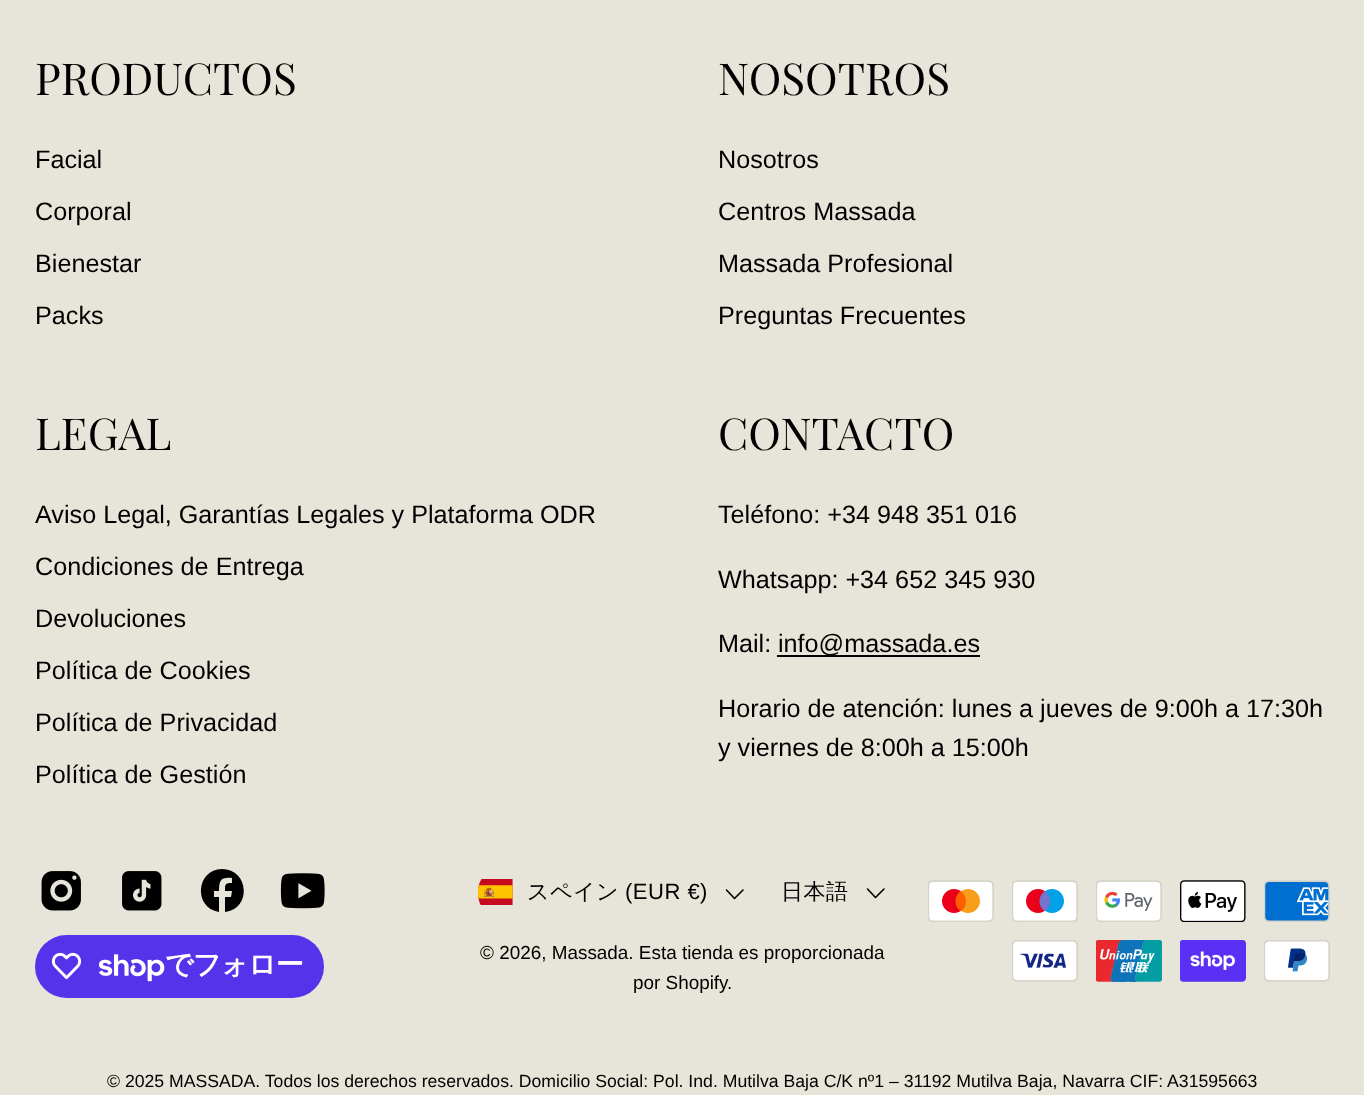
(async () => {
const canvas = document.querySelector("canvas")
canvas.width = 1364
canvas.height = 1095
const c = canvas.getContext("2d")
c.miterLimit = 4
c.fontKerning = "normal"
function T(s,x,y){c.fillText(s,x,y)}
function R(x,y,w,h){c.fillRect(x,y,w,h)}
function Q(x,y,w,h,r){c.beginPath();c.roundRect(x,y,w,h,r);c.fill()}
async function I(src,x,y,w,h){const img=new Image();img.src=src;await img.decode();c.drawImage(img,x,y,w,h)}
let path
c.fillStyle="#e7e4d9"
R(0,0,1364,1095)
c.font="44px Playfair Display"
c.fillStyle="#000"
T("PRODUCTOS",35,95)
c.font="25.2px Liberation Sans"
T("Facial",35,168)
T("Corporal",35,220)
T("Bienestar",35,272)
T("Packs",35,324)
c.font="44px Playfair Display"
T("NOSOTROS",718,95)
c.font="25.2px Liberation Sans"
T("Nosotros",718,168)
T("Centros Massada",718,220)
T("Massada Profesional",718,272)
T("Preguntas Frecuentes",718,324)
c.font="44px Playfair Display"
T("LEGAL",35,450)
c.font="25.2px Liberation Sans"
T("Aviso Legal, Garantías Legales y Plataforma ODR",35,523)
T("Condiciones de Entrega",35,575)
T("Devoluciones",35,627)
T("Política de Cookies",35,679)
T("Política de Privacidad",35,731)
T("Política de Gestión",35,783)
c.font="44px Playfair Display"
T("CONTACTO",718,450)
c.font="25.2px Liberation Sans"
T("Teléfono: +34 948 351 016",718,523)
T("Whatsapp: +34 652 345 930",718,588)
T("Mail:",718,652)
R(777,655,203,2)
T("info@massada.es",778,652)
T("Horario de atención: lunes a jueves de 9:00h a 17:30h",718,717)
T("y viernes de 8:00h a 15:00h",718,756)
await I("1.png",41,871,40,40)
await I("2.png",122,871,40,40)
path = new Path2D("M222 869c-26 0-29 39-3 43v-15h-5v-6h5c0-11 2-14 13-13v5c-7 0-7 1-7 8h7l-1 6h-6v15c27-3 24-43-3-43z")
c.fill(path)
await I("3.png",280,873,45,36)
c.fillStyle="#5433eb"
Q(35,935,289,63,31.5)
await I("4.png",51,952,31,28)
await I("5.png",98,954,67,28)
c.letterSpacing="-1px"
c.font="bold 28px WenQuanYi Zen Hei"
c.fillStyle="#fff"
T("でフォロー",165,974)
await I("6.png",478,879,35,26)
c.letterSpacing="0.5px"
c.font="500 22px WenQuanYi Zen Hei"
c.fillStyle="#000"
T("スペイン",527,899)
c.font="22px Liberation Sans"
T("(EUR €)",625,899)
path = new Path2D("M743 890l-8.5 8.5l-8-8.5")
c.strokeStyle="#000"
c.lineWidth=1.6
c.lineCap="round"
c.lineJoin="round"
c.stroke(path)
c.font="500 22px WenQuanYi Zen Hei"
T("日本語",781,899)
path = new Path2D("M884 889l-8.5 8.5l-8-8.5")
c.stroke(path)
c.letterSpacing="0px"
c.font="18.9px Liberation Sans"
T("© 2026, Massada. Esta tienda es proporcionada",480,959)
T("por Shopify",633,989)
T(".",727,989)
await I("7.png",928,880,66,42)
await I("8.png",1012,880,66,42)
await I("9.png",1096,880,66,42)
await I("10.png",1180,880,66,42)
await I("11.png",1264,880,66,42)
await I("12.png",1012,940,66,42)
await I("13.png",1096,940,66,42)
await I("14.png",1180,940,66,42)
await I("15.png",1264,940,66,42)
c.font="17.65px Liberation Sans"
T("© 2025 MASSADA. Todos los derechos reservados. Domicilio Social: Pol. Ind. Mutilva Baja C/K nº1 – 31192 Mutilva Baja, Navarra CIF: A31595663",107,1087)
})()
